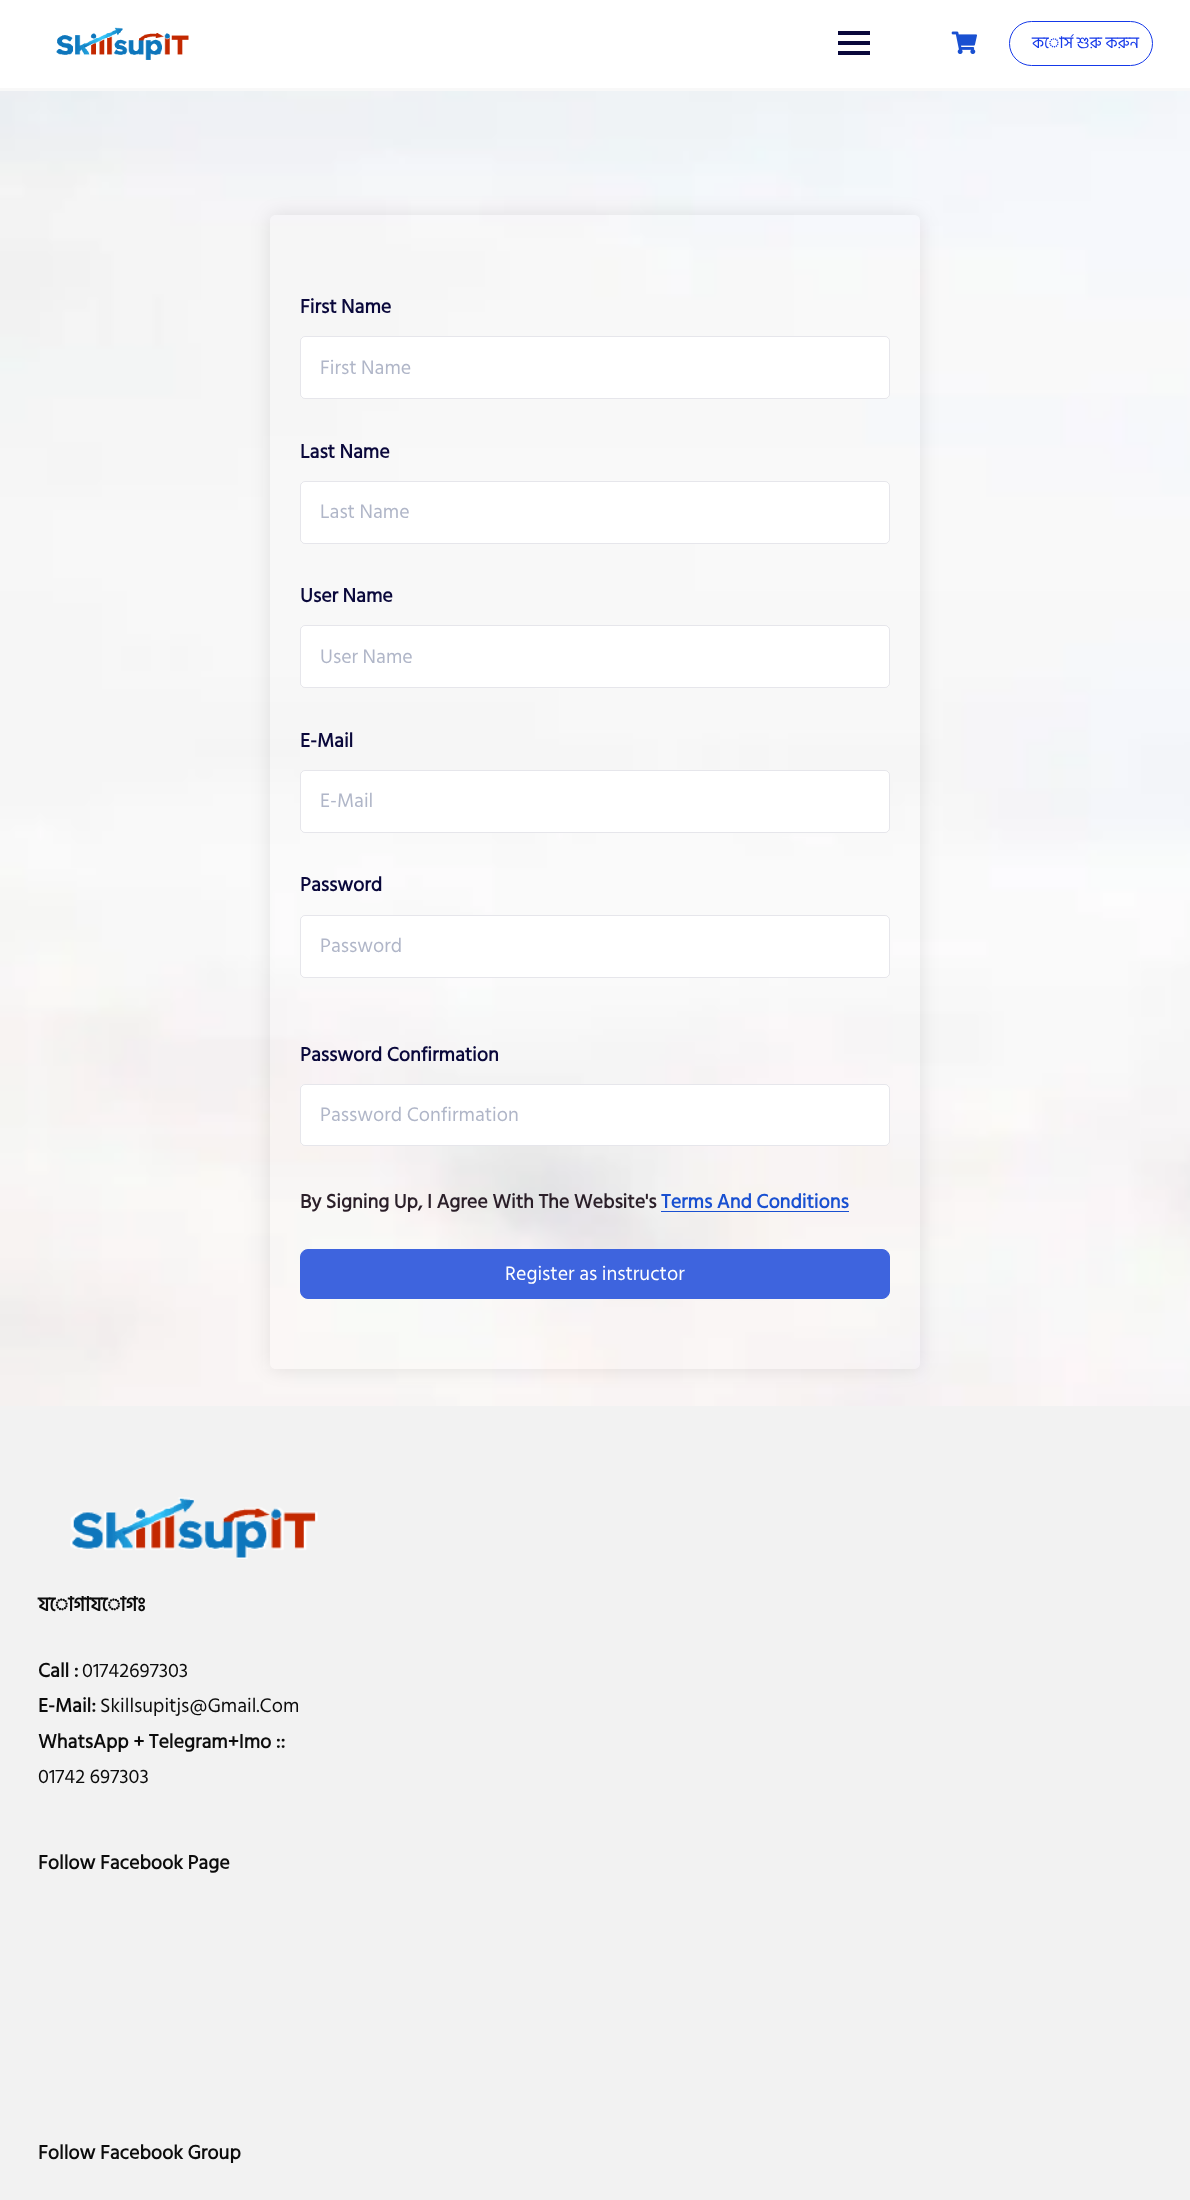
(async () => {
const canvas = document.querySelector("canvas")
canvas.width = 1190
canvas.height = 2200
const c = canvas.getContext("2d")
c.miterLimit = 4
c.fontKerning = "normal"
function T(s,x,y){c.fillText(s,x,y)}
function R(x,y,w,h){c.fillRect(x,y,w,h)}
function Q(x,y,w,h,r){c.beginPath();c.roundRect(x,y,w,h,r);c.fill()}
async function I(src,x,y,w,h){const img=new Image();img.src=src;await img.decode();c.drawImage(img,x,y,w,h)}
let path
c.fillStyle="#fff"
R(0,0,1190,2200)
await I("1.png",0,91,1190,1315)
c.fillStyle="#f8f8f8"
R(0,88,1190,3)
await I("2.png",56,27,133,33)
c.fillStyle="#0a083b"
R(838,41,32,4)
R(838,31,32,4)
R(838,51,32,4)
await I("3.png",951,31,26,23)
c.beginPath()
c.roundRect(1009.5,21.5,143,44,22)
c.strokeStyle="#1539e9"
c.stroke()
c.font="16.25px Hind Siliguri"
c.fillStyle="#1539e9"
T("কোর্স শুরু করুন",1032,48)
c.save()
path = new Path2D("M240 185h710v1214h-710zm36 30h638c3.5 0 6 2.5 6 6v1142c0 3.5-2.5 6-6 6h-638c-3.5 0-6-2.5-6-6v-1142c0-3.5 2.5-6 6-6z")
c.clip(path,"evenodd")
c.fillStyle="#0000001a"
c.filter="blur(9.5px)"
c.beginPath()
c.roundRect(270,215,650,1154,6)
c.fill()
c.filter="none"
c.restore()
c.font="bold 20px Hind Siliguri"
c.fillStyle="#0a083b"
T("First Name",300,313)
c.fillStyle="#fff"
Q(300,336,590,63,5)
c.beginPath()
c.roundRect(300.5,336.5,589,62,4.5)
c.strokeStyle="#0a083b1a"
c.stroke()
c.font="20px Hind Siliguri"
c.fillStyle="#b0b6c8"
T("First Name",320,374)
c.font="bold 20px Hind Siliguri"
c.fillStyle="#0a083b"
T("Last Name",300,458)
c.fillStyle="#fff"
Q(300,481,590,63,5)
c.beginPath()
c.roundRect(300.5,481.5,589,62,4.5)
c.stroke()
c.font="20px Hind Siliguri"
c.fillStyle="#b0b6c8"
T("Last Name",320,518)
c.font="bold 20px Hind Siliguri"
c.fillStyle="#0a083b"
T("User Name",300,602)
c.fillStyle="#fff"
Q(300,625,590,63,5)
c.beginPath()
c.roundRect(300.5,625.5,589,62,4.5)
c.stroke()
c.font="20px Hind Siliguri"
c.fillStyle="#b0b6c8"
T("User Name",320,663)
c.font="bold 20px Hind Siliguri"
c.fillStyle="#0a083b"
T("E-Mail",300,747)
c.fillStyle="#fff"
Q(300,770,590,63,5)
c.beginPath()
c.roundRect(300.5,770.5,589,62,4.5)
c.stroke()
c.font="20px Hind Siliguri"
c.fillStyle="#b0b6c8"
T("E-Mail",320,807)
c.font="bold 20px Hind Siliguri"
c.fillStyle="#0a083b"
T("Password",300,891)
c.fillStyle="#fff"
Q(300,915,590,63,5)
c.beginPath()
c.roundRect(300.5,915.5,589,62,4.5)
c.stroke()
c.font="20px Hind Siliguri"
c.fillStyle="#b0b6c8"
T("Password",320,952)
c.font="bold 20px Hind Siliguri"
c.fillStyle="#0a083b"
T("Password Confirmation",300,1061)
c.fillStyle="#fff"
Q(300,1084,590,62,5)
c.beginPath()
c.roundRect(300.5,1084.5,589,61,4.5)
c.stroke()
c.font="20px Hind Siliguri"
c.fillStyle="#b0b6c8"
T("Password Confirmation",320,1121)
c.font="bold 20px Hind Siliguri"
c.fillStyle="#2b1f29"
T("By Signing Up, I Agree With The Website's",300,1208)
c.fillStyle="#1950d1"
T("Terms And Conditions",661,1208)
R(661,1211,188,1)
c.fillStyle="#3e64de"
c.beginPath()
c.roundRect(300.5,1249.5,589,49,7.5)
c.fill()
c.strokeStyle="#3e64de"
c.stroke()
c.font="20px Hind Siliguri"
c.fillStyle="#fff"
T("Register as instructor",505,1280)
c.fillStyle="#f2f2f2"
R(0,1406,1190,794)
await I("4.png",70,1497,248,62)
c.font="bold 20px Hind Siliguri"
c.fillStyle="#0c0c0c"
T("যোগাযোগঃ",38,1611)
T("Call :",38,1677)
c.font="20px Hind Siliguri"
T("01742697303",82,1677)
c.font="bold 20px Hind Siliguri"
T("E-Mail:",38,1712)
c.font="20px Hind Siliguri"
T("Skillsupitjs@Gmail.Com",100,1712)
c.font="bold 20px Hind Siliguri"
T("WhatsApp + Telegram+Imo ::",38,1748)
c.font="20px Hind Siliguri"
T("01742 697303",38,1783)
c.font="bold 20px Hind Siliguri"
T("Follow Facebook Page",38,1869)
T("Follow Facebook Group",38,2159)
})()
